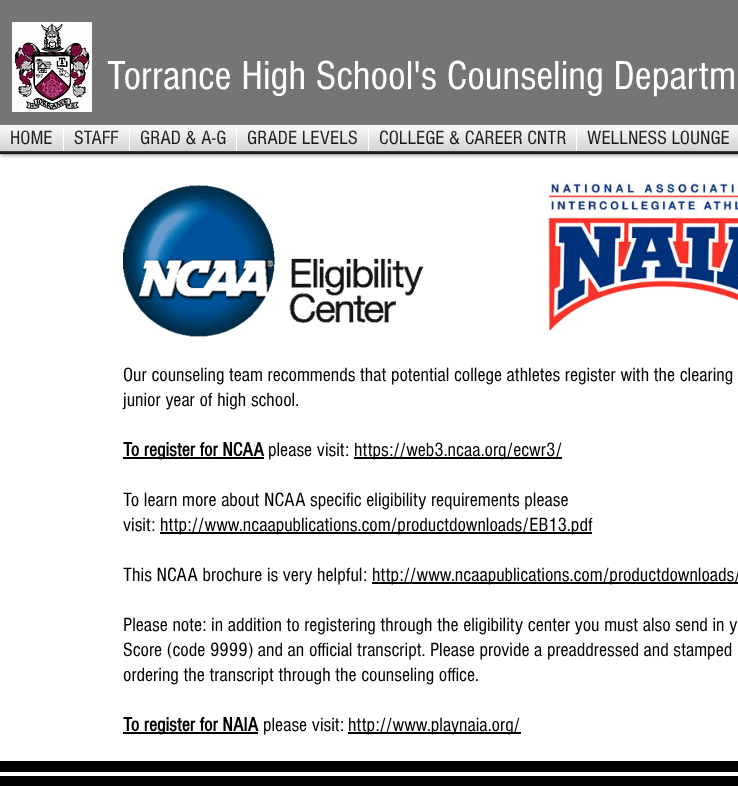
(async () => {
const canvas = document.querySelector("canvas")
canvas.width = 738
canvas.height = 786
const c = canvas.getContext("2d")
c.miterLimit = 4
c.fontKerning = "normal"
function T(s,x,y){c.fillText(s,x,y)}
function R(x,y,w,h){c.fillRect(x,y,w,h)}
async function I(src,x,y,w,h){const img=new Image();img.src=src;await img.decode();c.drawImage(img,x,y,w,h)}
c.fillStyle="#fff"
R(0,0,738,786)
c.fillStyle="#000000b3"
c.filter="blur(2.5px)"
c.beginPath()
c.rect(0,0,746,154)
c.fill()
c.filter="none"
c.fillStyle="#757575"
R(0,0,738,125)
c.font="42px 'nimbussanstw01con'"
c.fillStyle="#fff"
T("Torrance High School's Counseling Departm",107,89)
c.fillStyle="#000"
R(0,151,738,3)
await I("1.png",12,22,80,90)
c.fillStyle="#a29e9e99"
c.filter="blur(1.5px)"
c.beginPath()
c.rect(-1,126,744,26)
c.fill()
c.filter="none"
c.fillStyle="#fff"
R(0,125,738,26)
c.font="20px 'nimbussanstw01con'"
c.fillStyle="#000"
T("HOME",10,144)
await I("2.png",11,130,41,15)
await I("3.png",0,125,63,26)
T("STAFF",74,144)
await I("4.png",75,130,44,15)
await I("5.png",64,125,65,26)
T("GRAD & A-G",140,144)
await I("6.png",141,130,85,15)
await I("7.png",130,125,106,26)
T("GRADE LEVELS",247,144)
await I("8.png",248,130,109,15)
await I("9.png",237,125,131,26)
T("COLLEGE & CAREER CNTR",379,144)
await I("10.png",380,130,186,15)
await I("11.png",369,125,207,26)
T("WELLNESS LOUNGE",587,144)
await I("12.png",587,130,142,15)
await I("13.png",577,125,161,26)
await I("14.png",123,185,300,152)
await I("15.png",548,182,190,150)
T("Our counseling team recommends that potential college athletes register with the clearing",123,381)
T("junior year of high school.",123,406)
R(123,457,141,2)
c.font="bold 20px 'nimbussanstw01con'"
T("To register for NCAA",123,456)
c.font="20px 'nimbussanstw01con'"
T("please visit:",268,456)
R(354,457,208,2)
T("https://web3.ncaa.org/ecwr3/",354,456)
T("To learn more about NCAA specific eligibility requirements please",123,506)
T("visit:",123,531)
R(160,532,432,2)
T("http://www.ncaapublications.com/productdownloads/EB13.pdf",160,531)
T("This NCAA brochure is very helpful:",123,581)
R(372,582,366,2)
T("http://www.ncaapublications.com/productdownloads/",372,581)
T("Please note: in addition to registering through the eligibility center you must also send in y",123,631)
T("Score (code 9999) and an official transcript. Please provide a preaddressed and stamped",123,656)
T("ordering the transcript through the counseling office.",123,681)
R(123,732,135,2)
c.font="bold 20px 'nimbussanstw01con'"
T("To register for NAIA",123,731)
c.font="20px 'nimbussanstw01con'"
T("please visit:",263,731)
R(348,732,173,2)
T("http://www.playnaia.org/",348,731)
R(0,761,738,25)
c.fillStyle="#fff"
R(0,772,738,4)
})()
